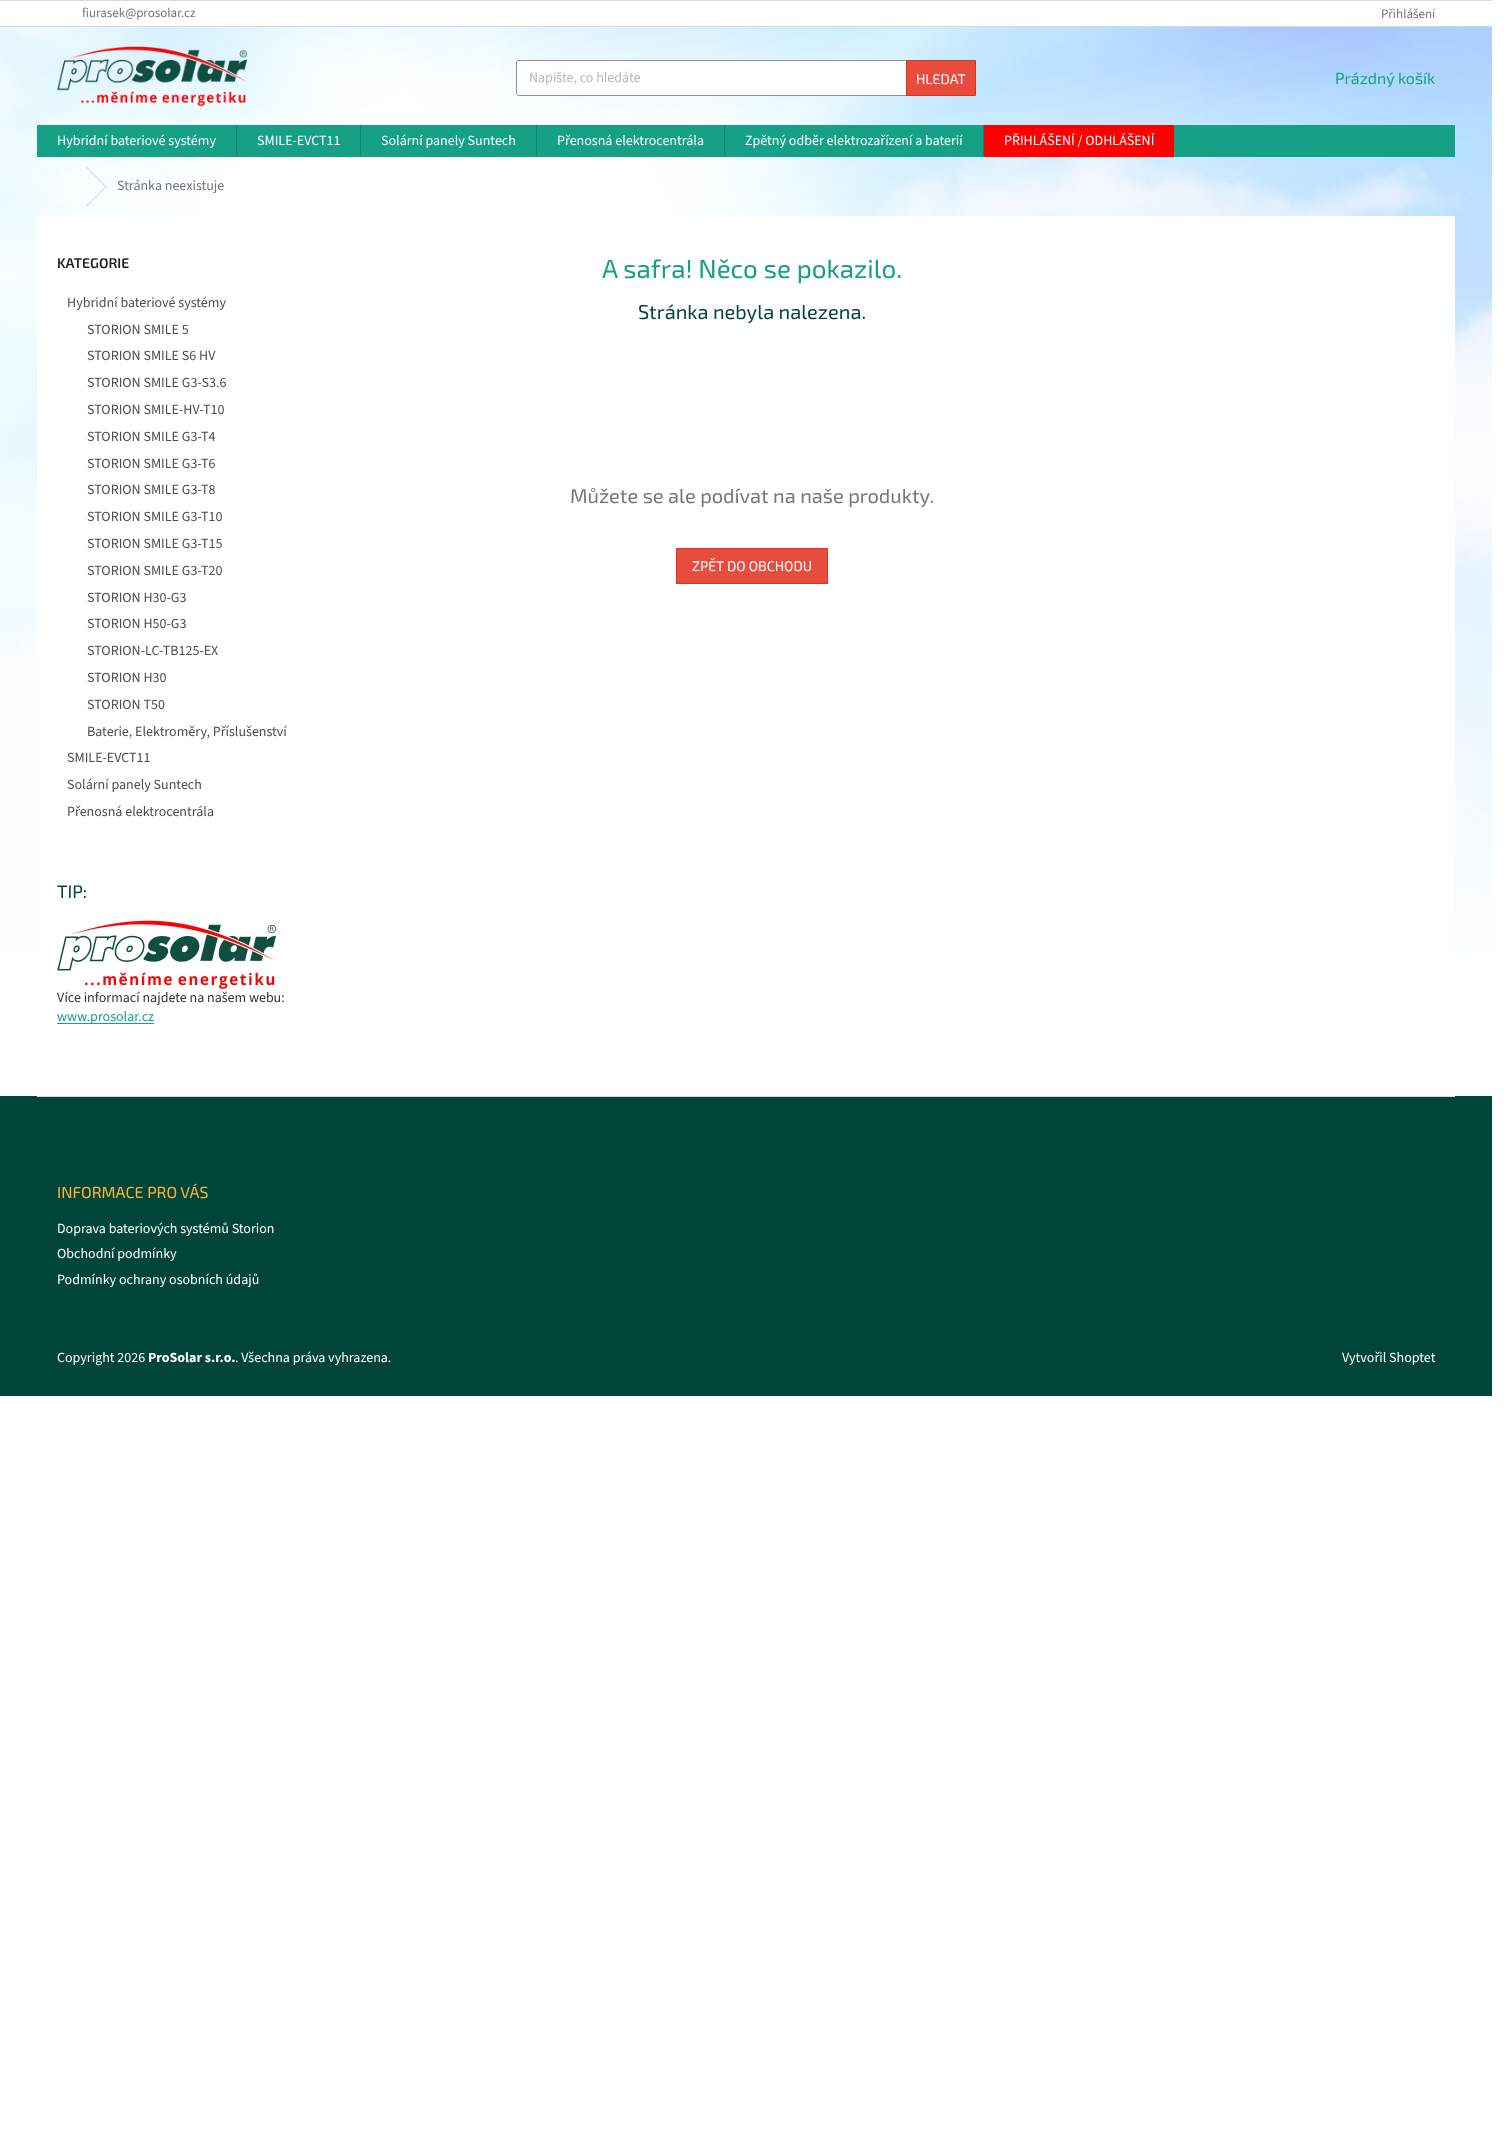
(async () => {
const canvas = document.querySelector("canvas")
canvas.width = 1507
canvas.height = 2150
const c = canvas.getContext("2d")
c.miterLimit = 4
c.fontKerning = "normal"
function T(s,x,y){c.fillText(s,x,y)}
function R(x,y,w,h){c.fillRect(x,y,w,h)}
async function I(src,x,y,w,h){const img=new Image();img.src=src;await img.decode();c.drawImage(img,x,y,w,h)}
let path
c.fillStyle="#fff"
R(0,0,1507,2150)
await I("1.png",0,27,1492,925)
c.fillStyle="#dadada"
R(0,0,1492,1)
R(0,26,1492,1)
c.font="13px 'Source Sans 3'"
c.fillStyle="#767676"
T("fiurasek@prosolar.cz",82,17)
T("Přihlášení",1381,18)
await I("2.png",57,46,190,60)
c.fillStyle="#fff"
c.beginPath()
c.roundRect(516.5,60.5,459,35,2.5)
c.fill()
c.strokeStyle="#919191"
c.stroke()
c.font="14px 'Source Sans 3'"
c.fillStyle="#b6b6b6"
T("Napište, co hledáte",529,82)
c.fillStyle="#e74c3c"
c.beginPath()
c.rect(906.5,60.5,69,35)
c.fill()
c.strokeStyle="#d93621"
c.stroke()
c.font="14px 'Exo 2'"
c.fillStyle="#fff"
T("HLEDAT",916,84)
c.font="16px 'Exo 2'"
c.fillStyle="#16a085"
T("Prázdný košík",1335,84)
R(37,125,1418,32)
c.font="14px 'Source Sans 3'"
c.fillStyle="#fff"
T("Hybridní bateriové systémy",57,145)
c.fillStyle="#12826c"
R(236,125,1,32)
c.fillStyle="#fff"
T("SMILE-EVCT11",257,145)
c.fillStyle="#12826c"
R(360,125,1,32)
c.fillStyle="#fff"
T("Solární panely Suntech",381,145)
c.fillStyle="#12826c"
R(536,125,1,32)
c.fillStyle="#fff"
T("Přenosná elektrocentrála",557,145)
c.fillStyle="#12826c"
R(724,125,1,32)
c.fillStyle="#fff"
T("Zpětný odběr elektrozařízení a baterií",745,145)
c.fillStyle="#f00"
R(984,125,190,32)
c.fillStyle="#12826c"
R(983,125,1,32)
c.fillStyle="#fff"
T("PŘIHLÁŠENÍ / ODHLÁŠENÍ",1004,145)
c.fillStyle="#dadada"
path = new Path2D("M86 167.5l1-.5l20 20l-1 .5z")
c.fill(path)
path = new Path2D("M106 186l1 .5l-20 20l-1-.5z")
c.fill(path)
c.fillStyle="#767676"
T("Stránka neexistuje",117,190)
c.fillStyle="#fff"
R(37,216,1418,736)
c.font="600 14px 'Exo 2'"
c.fillStyle="#1f1f1f"
T("KATEGORIE",57,268)
c.font="14px 'Source Sans 3'"
c.fillStyle="#4d4d4d"
T("Hybridní bateriové systémy",67,307)
T("STORION SMILE 5",87,334)
T("STORION SMILE S6 HV",87,360)
T("STORION SMILE G3-S3.6",87,387)
T("STORION SMILE-HV-T10",87,414)
T("STORION SMILE G3-T4",87,441)
T("STORION SMILE G3-T6",87,468)
T("STORION SMILE G3-T8",87,494)
T("STORION SMILE G3-T10",87,521)
T("STORION SMILE G3-T15",87,548)
T("STORION SMILE G3-T20",87,575)
T("STORION H30-G3",87,602)
T("STORION H50-G3",87,628)
T("STORION-LC-TB125-EX",87,655)
T("STORION H30",87,682)
T("STORION T50",87,709)
T("Baterie, Elektroměry, Příslušenství",87,736)
T("SMILE-EVCT11",67,762)
T("Solární panely Suntech",67,789)
T("Přenosná elektrocentrála",67,816)
c.font="18px 'Exo 2'"
c.fillStyle="#00453a"
T("TIP:",57,898)
await I("3.png",57,920,219,69)
c.font="14px 'Source Sans 3'"
c.fillStyle="#333"
T("Více informací najdete na našem webu:",57,1002)
c.fillStyle="#16a085"
R(57,1023,97,1)
T("www.prosolar.cz",57,1021)
c.font="26px 'Exo 2'"
T("A safra! Něco se pokazilo.",602,278)
c.font="20px 'Exo 2'"
c.fillStyle="#00453a"
T("Stránka nebyla nalezena.",638,319)
c.fillStyle="#767676"
T("Můžete se ale podívat na naše produkty.",570,503)
c.fillStyle="#e74c3c"
c.beginPath()
c.rect(676.5,548.5,151,35)
c.fill()
c.stroke()
c.font="14px 'Exo 2'"
c.fillStyle="#fff"
T("ZPĚT DO OBCHODU",692,571)
c.fillStyle="#00453a"
R(0,1096,1492,300)
c.fillStyle="#dadada"
R(37,1096,1418,1)
c.font="16px 'Exo 2'"
c.fillStyle="#ffb534"
T("INFORMACE PRO VÁS",57,1198)
c.font="14px 'Source Sans 3'"
c.fillStyle="#fff"
T("Doprava bateriových systémů Storion",57,1233)
T("Obchodní podmínky",57,1258)
T("Podmínky ochrany osobních údajů",57,1284)
T("Copyright 2026",57,1362)
c.font="bold 14px 'Source Sans 3'"
T("ProSolar s.r.o.",148,1362)
c.font="14px 'Source Sans 3'"
T(". Všechna práva vyhrazena.",235,1362)
T("Vytvořil Shoptet",1342,1362)
})()
